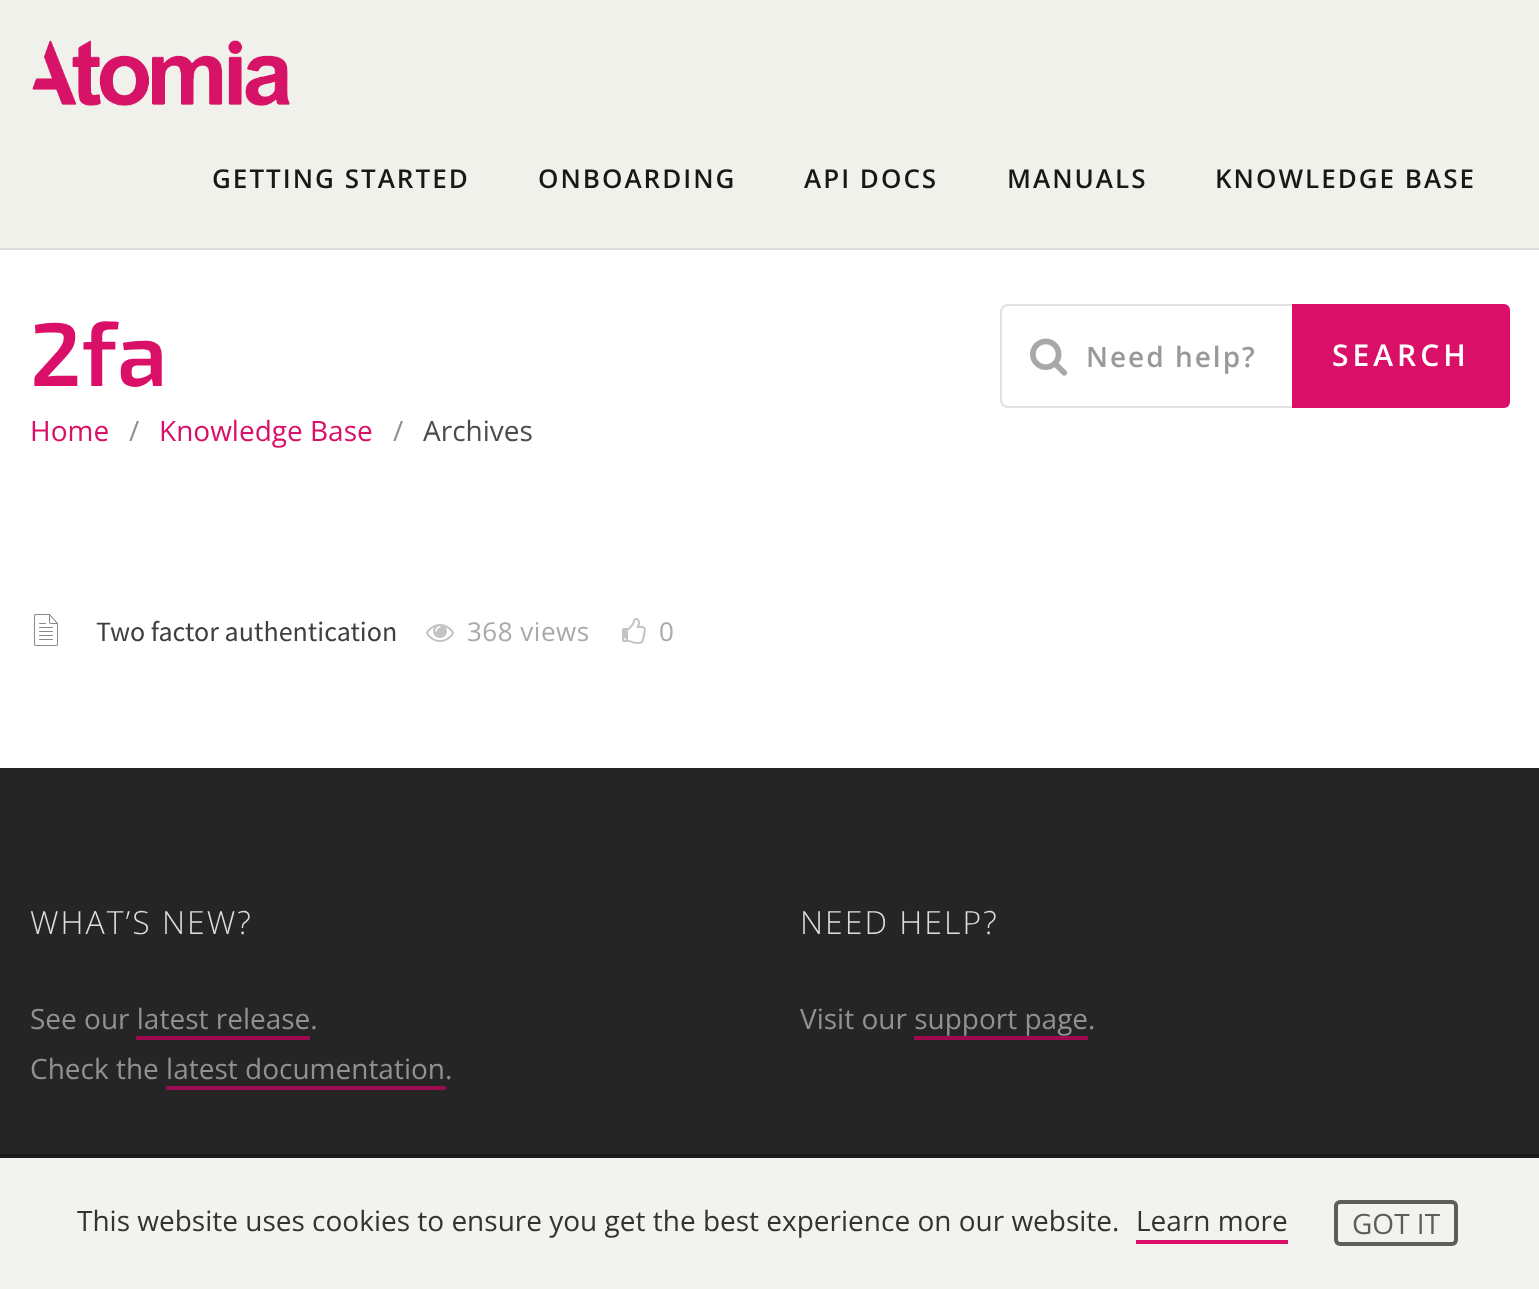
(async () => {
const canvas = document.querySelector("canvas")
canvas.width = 1539
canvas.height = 1289
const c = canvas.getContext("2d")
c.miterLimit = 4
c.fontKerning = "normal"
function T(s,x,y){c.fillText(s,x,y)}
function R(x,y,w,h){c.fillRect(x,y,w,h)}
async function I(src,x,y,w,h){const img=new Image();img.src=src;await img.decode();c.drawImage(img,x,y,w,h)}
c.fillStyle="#fff"
R(0,0,1539,1289)
c.fillStyle="#f1f1ec"
R(0,0,1539,248)
c.fillStyle="#dfdfd9"
R(0,248,1539,2)
await I("1.png",32,40,258,66)
c.letterSpacing="2px"
c.font="600 26px Open Sans"
c.fillStyle="#181818"
T("GETTING STARTED",212,188)
T("ONBOARDING",538,188)
T("API DOCS",804,188)
T("MANUALS",1007,188)
T("KNOWLEDGE BASE",1215,188)
c.letterSpacing="0px"
c.font="600 90px 'Exo 2'"
c.fillStyle="#da0f68"
T("2fa",30,386)
c.beginPath()
c.roundRect(1001,305,508,102,7)
c.strokeStyle="#dde1e1"
c.lineWidth=2
c.stroke()
await I("2.png",1030,338,38,38)
c.letterSpacing="2px"
c.font="600 28px Open Sans"
c.fillStyle="#999"
T("Need help?",1086,367)
c.fillStyle="#da0f68"
c.beginPath()
c.roundRect(1292,304,218,104,[0,6,6,0])
c.fill()
c.letterSpacing="4px"
c.font="600 30px Open Sans"
c.fillStyle="#fff"
T("SEARCH",1332,366)
c.letterSpacing="0px"
c.font="28px Open Sans"
c.fillStyle="#da0f68"
T("Home",30,441)
c.fillStyle="#919191"
T("/",129,441)
c.fillStyle="#da0f68"
T("Knowledge Base",159,441)
c.fillStyle="#919191"
T("/",393,441)
c.fillStyle="#4c4c4c"
T("Archives",423,441)
await I("3.png",34,614,24,32)
c.font="28px Source Sans Pro"
c.fillStyle="#3f3f3f"
T("Two factor authentication",96,641)
await I("4.png",426,624,28,18)
c.letterSpacing="0.5px"
c.font="26px Open Sans"
c.fillStyle="#a9a9a9"
T("368 views",467,641)
await I("5.png",622,618,24,26)
T("0",659,641)
c.fillStyle="#252525"
R(0,768,1539,386)
c.letterSpacing="2px"
c.font="300 32px Open Sans"
c.fillStyle="#ddd"
T("WHAT’S NEW?",30,934)
c.letterSpacing="0px"
c.font="28px Open Sans"
c.fillStyle="#919191"
T("See our latest release.",30,1029)
c.fillStyle="#9e0a50"
R(136,1036,174,4)
c.fillStyle="#919191"
T("Check the latest documentation.",30,1079)
c.fillStyle="#9e0a50"
R(166,1086,280,4)
c.letterSpacing="2px"
c.font="300 32px Open Sans"
c.fillStyle="#ddd"
T("NEED HELP?",800,934)
c.letterSpacing="0px"
c.font="28px Open Sans"
c.fillStyle="#919191"
T("Visit our support page.",800,1029)
c.fillStyle="#9e0a50"
R(914,1036,174,4)
c.fillStyle="#f2f2ee"
R(0,1158,1539,131)
c.fillStyle="#1b1b1b"
R(0,1154,1539,4)
c.fillStyle="#333"
T("This website uses cookies to ensure you get the best experience on our website.",77,1231)
T("Learn more",1136,1231)
c.fillStyle="#da0f68"
R(1136,1240,152,4)
c.beginPath()
c.roundRect(1336,1202,120,42,4)
c.strokeStyle="#5f5d5c"
c.lineWidth=4
c.stroke()
c.fillStyle="#5f5d5c"
T("GOT IT",1352,1234)
})()
